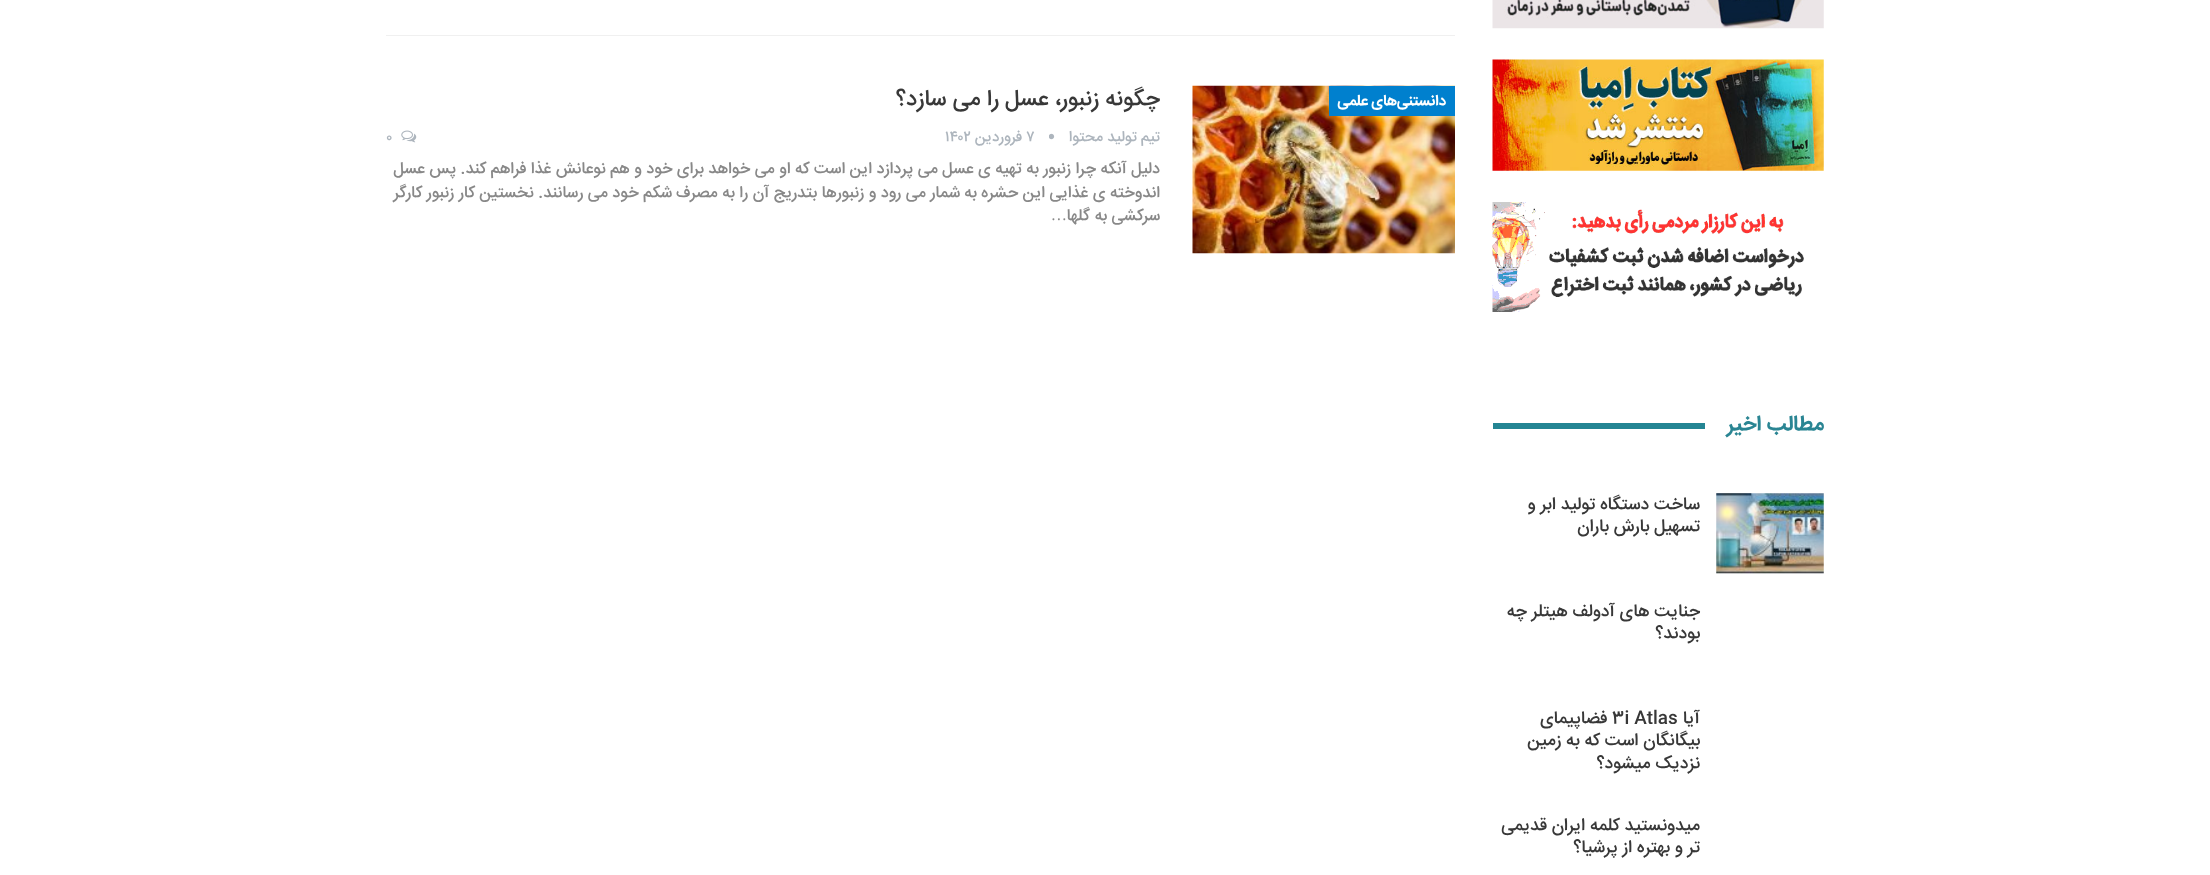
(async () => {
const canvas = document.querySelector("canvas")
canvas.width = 2210
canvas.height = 875
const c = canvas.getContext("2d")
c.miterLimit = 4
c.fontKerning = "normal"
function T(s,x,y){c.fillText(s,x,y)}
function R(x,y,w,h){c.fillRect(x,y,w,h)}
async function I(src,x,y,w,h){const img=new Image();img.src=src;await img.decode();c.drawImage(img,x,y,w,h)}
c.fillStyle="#fff"
R(0,0,2210,875)
c.fillStyle="#f0f0f0"
R(386,35,1069,1)
await I("1.png",1192,85,263,169)
c.fillStyle="#0080ce"
R(1329,86,126,30)
c.direction="rtl"
c.font="bold 15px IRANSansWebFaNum"
c.fillStyle="#fff"
T("دانستنی‌های علمی",1446,105)
c.font="500 22.5px IRANSansWebFaNum"
c.fillStyle="#383838"
T("چگونه زنبور، عسل را می سازد؟",1160,105)
c.font="500 15px IRANSansWebFaNum"
c.fillStyle="#adb5bd"
T("تیم تولید محتوا",1160,141)
await I("2.png",1049,133,6,7)
c.direction="ltr"
T("۷",1026,141)
c.direction="rtl"
T("فروردین",1022,141)
c.direction="ltr"
T("۱۴۰۲",945,141)
await I("3.png",401,130,16,13)
T("۰",386,141)
c.direction="rtl"
c.font="500 16.25px IRANSansWebFaNum"
c.fillStyle="#888"
T("دلیل آنکه چرا زنبور به تهیه ی عسل می پردازد این است که او می خواهد برای خود و هم نوعانش غذا فراهم کند. پس عسل",1160,173)
T("اندوخته ی غذایی این حشره به شمار می رود و زنبورها بتدریج آن را به مصرف شکم خود می رسانند. نخستین کار زنبور کارگر",1160,197)
T("سرکشی به گلها",1160,220)
c.font="16.25px Liberation Serif"
T("…",1067,220)
await I("4.png",1492,0,332,29)
await I("5.png",1492,59,332,112)
await I("6.png",1492,202,312,110)
c.font="bold 21.25px IRANSansWebFaNum"
c.fillStyle="#2a8593"
T("مطالب اخیر",1824,430)
c.fillStyle="#248593"
R(1493,423,212,6)
await I("7.png",1716,493,108,81)
c.font="500 17.5px IRANSansWebFaNum"
c.fillStyle="#383838"
T("ساخت دستگاه تولید ابر و",1700,509)
T("تسهیل بارش باران",1700,531)
T("جنایت های آدولف هیتلر چه",1700,616)
T("بودند؟",1700,638)
T("آیا",1700,723)
c.direction="ltr"
T("3i Atlas",1612,723)
c.direction="rtl"
T("فضاپیمای",1607,723)
T("بیگانگان است که به زمین",1700,745)
T("نزدیک میشود؟",1700,768)
T("میدونستید کلمه ایران قدیمی",1700,830)
T("تر و بهتره از پرشیا؟",1700,852)
})()
